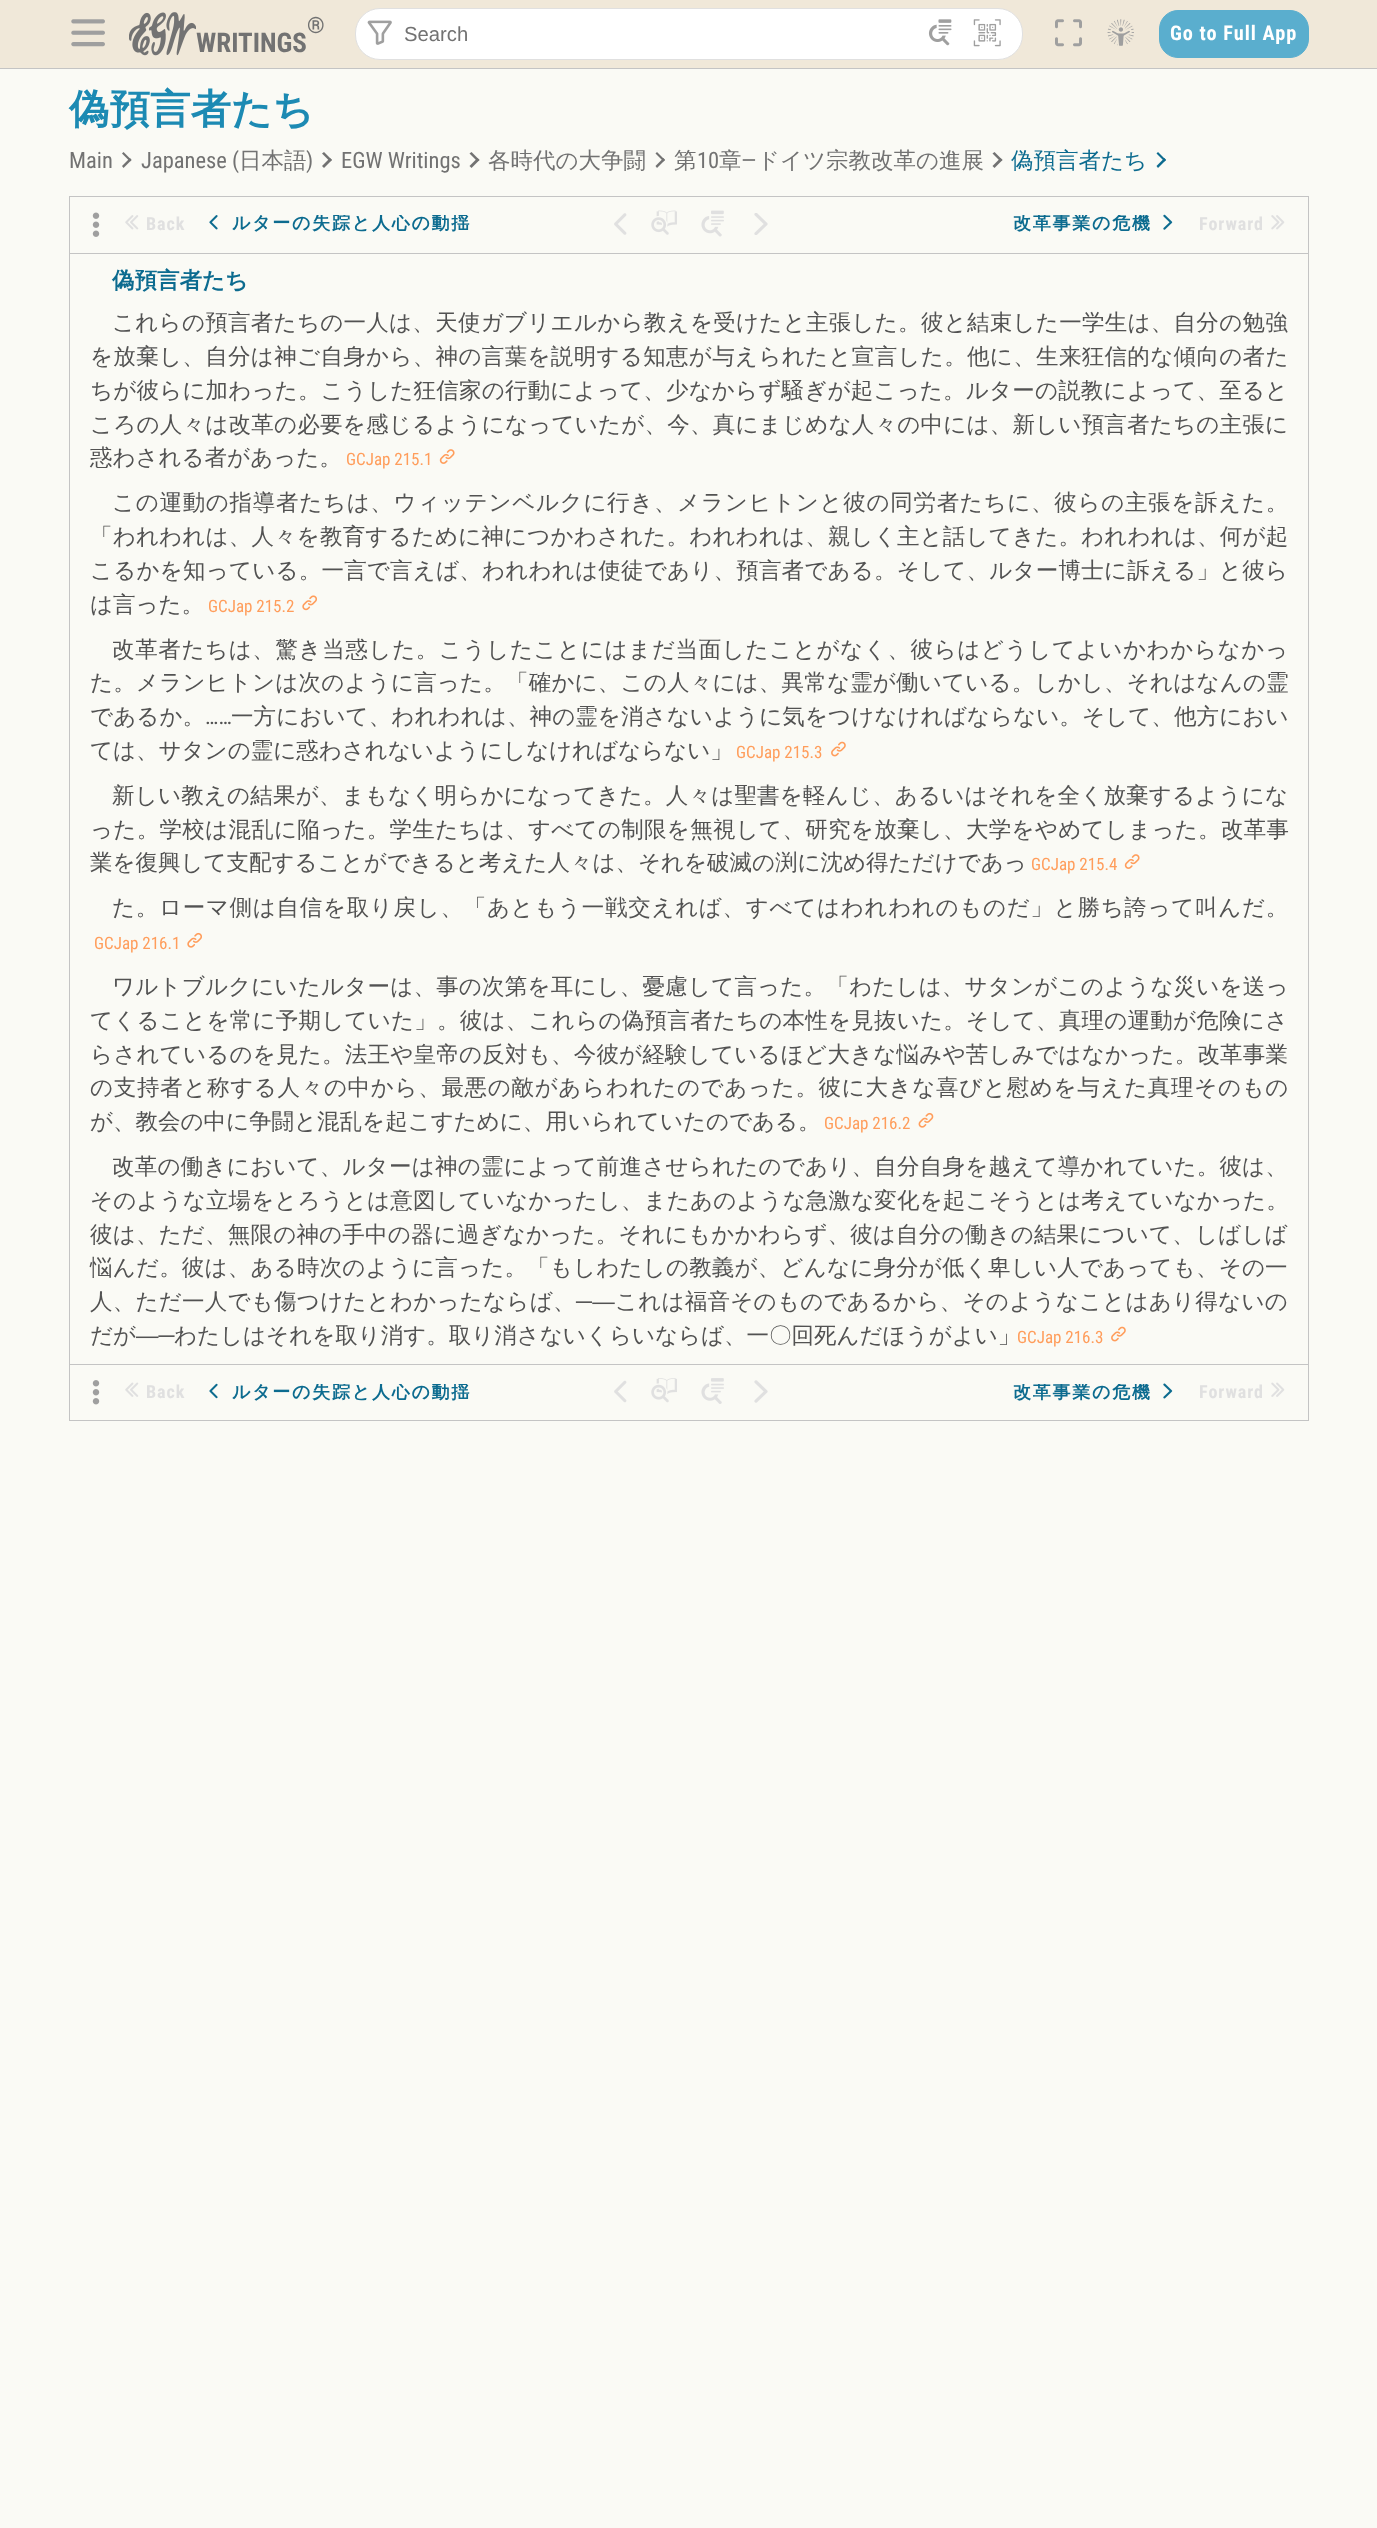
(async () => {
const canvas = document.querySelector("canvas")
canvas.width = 1377
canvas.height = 2528
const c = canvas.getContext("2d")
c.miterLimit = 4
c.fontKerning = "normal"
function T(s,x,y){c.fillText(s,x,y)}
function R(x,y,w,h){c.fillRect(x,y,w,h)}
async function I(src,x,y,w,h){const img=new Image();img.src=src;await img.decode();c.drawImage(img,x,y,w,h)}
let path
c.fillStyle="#fafaf5"
R(0,0,1377,2528)
c.fillStyle="#f0e8d9"
R(0,0,1377,68)
c.fillStyle="#c4c4c4"
R(0,68,1377,1)
await I("1.png",71,19,34,28)
await I("2.png",129,12,67,44)
c.font="bold 22.5px Roboto Condensed"
c.fillStyle="#727272"
T("®",307,33)
c.font="bold 27px Roboto Condensed"
T("WRITINGS",196,52)
c.fillStyle="#fff"
c.beginPath()
c.roundRect(355.5,8.5,667,51,24.5)
c.fill()
c.strokeStyle="#e0e0e0"
c.stroke()
await I("3.png",367,20,25,25)
c.font="20.25px Liberation Sans"
c.fillStyle="#727272"
T("Search",404,41)
await I("4.png",928,19,24,27)
await I("5.png",973,19,28,28)
await I("6.png",1055,19,27,28)
await I("7.png",1107,19,27,27)
c.fillStyle="#5aaece"
c.beginPath()
c.roundRect(1159.5,10.5,149,47,18.5)
c.fill()
c.strokeStyle="#5aaece"
c.stroke()
c.letterSpacing="1px"
c.font="bold 20.25px Roboto Condensed"
c.fillStyle="#fff"
T("Go to Full App",1170,40)
c.letterSpacing="0px"
c.font="bold 40.5px WenQuanYi Zen Hei"
c.fillStyle="#1c8ab3"
T("偽預言者たち",69,123)
c.font="22.5px Roboto Condensed"
c.fillStyle="#727272"
T("Main",69,168)
path = new Path2D("M122 153.5l1.5-1.5l8 8l-1.5 1.5z")
c.fill(path)
path = new Path2D("M122 166l8-8l1.5 2l-8 8z")
c.fill(path)
T("Japanese (",141,168)
c.font="500 22.5px WenQuanYi Zen Hei"
T("日本語",239,168)
c.font="22.5px Roboto Condensed"
T(")",306,168)
path = new Path2D("M322 153.5l2-1.5l8 8l-2 1.5z")
c.fill(path)
path = new Path2D("M322 166l8-8l2 2l-8 8z")
c.fill(path)
T("EGW Writings",341,168)
path = new Path2D("M469.5 153.5l2-1.5l8 8l-2 1.5z")
c.fill(path)
path = new Path2D("M469.5 166l8-8l2 2l-8 8z")
c.fill(path)
c.font="500 22.5px WenQuanYi Zen Hei"
T("各時代の大争闘",488,168)
path = new Path2D("M655.5 153.5l1.5-1.5l8 8l-1.5 1.5z")
c.fill(path)
path = new Path2D("M655.5 166l8-8l1.5 2l-8 8z")
c.fill(path)
T("第",674,168)
c.font="22.5px Roboto Condensed"
T("10",697,168)
c.font="500 22.5px WenQuanYi Zen Hei"
T("章",719,168)
c.font="22.5px Roboto Condensed"
T("—",741,168)
c.font="500 22.5px WenQuanYi Zen Hei"
T("ドイツ宗教改革の進展",757,168)
path = new Path2D("M992.5 153.5l2-1.5l8 8l-2 1.5z")
c.fill(path)
path = new Path2D("M992.5 166l8-8l2 2l-8 8z")
c.fill(path)
c.fillStyle="#0c6b8f"
T("偽預言者たち",1011,168)
path = new Path2D("M1156.5 153.5l1.5-1.5l8 8l-1.5 1.5z")
c.fill(path)
path = new Path2D("M1156.5 166l8-8l1.5 2l-8 8z")
c.fill(path)
c.strokeStyle="#c4c4c4"
c.strokeRect(69.5,196.5,1239,1224)
c.fillStyle="#c4c4c4"
R(70,253,1238,1)
await I("8.png",92,212,8,25)
await I("9.png",125,215,14,15)
c.letterSpacing="1px"
c.font="bold 18px Roboto Condensed"
c.fillStyle="#e0e0e0"
T("Back",146,230)
await I("10.png",209,215,9,15)
c.save()
c.beginPath()
c.rect(225,215,361,19)
c.clip()
c.letterSpacing="1.75px"
c.font="bold 18px WenQuanYi Zen Hei"
c.fillStyle="#0c6b8f"
T("ルターの失踪と人心の動揺",232,229)
c.restore()
await I("11.png",614,213,13,22)
await I("12.png",651,210,26,25)
await I("13.png",701,210,23,27)
await I("14.png",754,213,14,22)
c.save()
c.beginPath()
c.rect(798,215,361,19)
c.clip()
c.letterSpacing="1.75px"
c.font="bold 18px WenQuanYi Zen Hei"
c.fillStyle="#0c6b8f"
T("改革事業の危機",1013,229)
c.restore()
await I("15.png",1163,214,10,16)
T("Forward",1199,230)
await I("16.png",1271,215,14,15)
c.letterSpacing="0px"
c.font="bold 22.5px WenQuanYi Zen Hei"
c.fillStyle="#0c6b8f"
T("偽預言者たち",112,288)
c.letterSpacing="0.28px"
c.font="500 22.5px WenQuanYi Zen Hei"
c.fillStyle="#525252"
T("これらの預言者たちの一人は、天使ガブリエルから教えを受けたと主張した。彼と結束した一学生は、自分の勉強",112,330)
c.letterSpacing="0.33px"
T("を放棄し、自分は神ご自身から、神の言葉を説明する知恵が与えられたと宣言した。他に、生来狂信的な傾向の者た",90,364)
c.letterSpacing="0.2px"
T("ちが彼らに加わった。こうした狂信家の行動によって、少なからず騒ぎが起こった。ルターの説教によって、至ると",90,398)
c.letterSpacing="0.23px"
T("ころの人々は改革の必要を感じるようになっていたが、今、真にまじめな人々の中には、新しい預言者たちの主張に",90,432)
c.letterSpacing="0px"
T("惑わされる者があった。",90,465)
c.font="17px Roboto Condensed"
c.fillStyle="#ff9d5b"
T("GCJap 215.1",346,465)
await I("17.png",439,449,16,15)
c.letterSpacing="0.7px"
c.font="500 22.5px WenQuanYi Zen Hei"
c.fillStyle="#525252"
T("この運動の指導者たちは、ウィッテンベルクに行き、メランヒトンと彼の同労者たちに、彼らの主張を訴えた。",112,510)
c.letterSpacing="0.18px"
T("「われわれは、人々を教育するために神につかわされた。われわれは、親しく主と話してきた。われわれは、何が起",90,544)
c.letterSpacing="0.22px"
T("こるかを知っている。一言で言えば、われわれは使徒であり、預言者である。そして、ルター博士に訴える」と彼ら",90,578)
c.letterSpacing="0px"
T("は言った。",90,612)
c.font="17px Roboto Condensed"
c.fillStyle="#ff9d5b"
T("GCJap 215.2",208,612)
await I("18.png",302,595,15,16)
c.letterSpacing="0.63px"
c.font="500 22.5px WenQuanYi Zen Hei"
c.fillStyle="#525252"
T("改革者たちは、驚き当惑した。こうしたことにはまだ当面したことがなく、彼らはどうしてよいかわからなかっ",112,657)
c.letterSpacing="0.2px"
T("た。メランヒトンは次のように言った。「確かに、この人々には、異常な霊が働いている。しかし、それはなんの霊",90,690)
c.letterSpacing="0.1px"
T("であるか。",90,724)
c.font="22.5px Roboto Condensed"
T("……",205,724)
c.font="500 22.5px WenQuanYi Zen Hei"
T("一方において、われわれは、神の霊を消さないように気をつけなければならない。そして、他方におい",231,724)
c.letterSpacing="0px"
T("ては、サタンの霊に惑わされないようにしなければならない」",90,758)
c.font="17px Roboto Condensed"
c.fillStyle="#ff9d5b"
T("GCJap 215.3",736,758)
await I("19.png",831,741,15,16)
c.letterSpacing="0.2px"
c.font="500 22.5px WenQuanYi Zen Hei"
c.fillStyle="#525252"
T("新しい教えの結果が、まもなく明らかになってきた。人々は聖書を軽んじ、あるいはそれを全く放棄するようにな",112,803)
c.letterSpacing="0.3px"
T("った。学校は混乱に陥った。学生たちは、すべての制限を無視して、研究を放棄し、大学をやめてしまった。改革事",90,837)
c.letterSpacing="0px"
T("業を復興して支配することができると考えた人々は、それを破滅の渕に沈め得ただけであっ",90,870)
c.font="17px Roboto Condensed"
c.fillStyle="#ff9d5b"
T("GCJap 215.4",1031,870)
await I("17.png",1124,854,16,15)
c.letterSpacing="0.7px"
c.font="500 22.5px WenQuanYi Zen Hei"
c.fillStyle="#525252"
T("た。ローマ側は自信を取り戻し、「あともう一戦交えれば、すべてはわれわれのものだ」と勝ち誇って叫んだ。",112,915)
c.letterSpacing="0px"
c.font="17px Roboto Condensed"
c.fillStyle="#ff9d5b"
T("GCJap 216.1",94,949)
await I("20.png",187,932,15,16)
c.letterSpacing="0.2px"
c.font="500 22.5px WenQuanYi Zen Hei"
c.fillStyle="#525252"
T("ワルトブルクにいたルターは、事の次第を耳にし、憂慮して言った。「わたしは、サタンがこのような災いを送っ",112,994)
c.letterSpacing="0.25px"
T("てくることを常に予期していた」。彼は、これらの偽預言者たちの本性を見抜いた。そして、真理の運動が危険にさ",90,1028)
c.letterSpacing="0.23px"
T("らされているのを見た。法王や皇帝の反対も、今彼が経験しているほど大きな悩みや苦しみではなかった。改革事業",90,1062)
c.letterSpacing="0.68px"
T("の支持者と称する人々の中から、最悪の敵があらわれたのであった。彼に大きな喜びと慰めを与えた真理そのもの",90,1095)
c.letterSpacing="0px"
T("が、教会の中に争闘と混乱を起こすために、用いられていたのである。",90,1129)
c.font="17px Roboto Condensed"
c.fillStyle="#ff9d5b"
T("GCJap 216.2",824,1129)
await I("21.png",918,1112,16,16)
c.letterSpacing="0.23px"
c.font="500 22.5px WenQuanYi Zen Hei"
c.fillStyle="#525252"
T("改革の働きにおいて、ルターは神の霊によって前進させられたのであり、自分自身を越えて導かれていた。彼は、",112,1174)
c.letterSpacing="0.15px"
T("そのような立場をとろうとは意図していなかったし、またあのような急激な変化を起こそうとは考えていなかった。",90,1208)
c.letterSpacing="0.2px"
T("彼は、ただ、無限の神の手中の器に過ぎなかった。それにもかかわらず、彼は自分の働きの結果について、しばしば",90,1242)
T("悩んだ。彼は、ある時次のように言った。「もしわたしの教義が、どんなに身分が低く卑しい人であっても、その一",90,1275)
c.letterSpacing="0.25px"
T("人、ただ一人でも傷つけたとわかったならば、",90,1309)
c.font="22.5px Liberation Sans"
T("─―",576,1309)
c.font="500 22.5px WenQuanYi Zen Hei"
T("これは福音そのものであるから、そのようなことはあり得ないの",615,1309)
c.letterSpacing="0px"
T("だが",90,1343)
c.font="22.5px Liberation Sans"
T("―─",136,1343)
c.font="500 22.5px WenQuanYi Zen Hei"
T("わたしはそれを取り消す。取り消さないくらいならば、一〇回死んだほうがよい」",174,1343)
c.font="17px Roboto Condensed"
c.fillStyle="#ff9d5b"
T("GCJap 216.3",1017,1343)
await I("19.png",1111,1326,15,16)
c.fillStyle="#c4c4c4"
R(70,1364,1238,1)
await I("22.png",92,1380,8,25)
await I("23.png",125,1382,14,15)
c.letterSpacing="1px"
c.font="bold 18px Roboto Condensed"
c.fillStyle="#e0e0e0"
T("Back",146,1398)
await I("24.png",209,1383,9,16)
c.save()
c.beginPath()
c.rect(225,1384,361,17)
c.clip()
c.letterSpacing="1.75px"
c.font="bold 18px WenQuanYi Zen Hei"
c.fillStyle="#0c6b8f"
T("ルターの失踪と人心の動揺",232,1398)
c.restore()
await I("25.png",614,1380,13,23)
await I("26.png",651,1378,26,25)
await I("27.png",701,1378,23,26)
await I("28.png",754,1380,14,23)
c.save()
c.beginPath()
c.rect(798,1384,361,17)
c.clip()
c.letterSpacing="1.75px"
c.font="bold 18px WenQuanYi Zen Hei"
c.fillStyle="#0c6b8f"
T("改革事業の危機",1013,1398)
c.restore()
await I("29.png",1163,1383,10,16)
T("Forward",1199,1398)
await I("30.png",1271,1382,14,15)
})()
